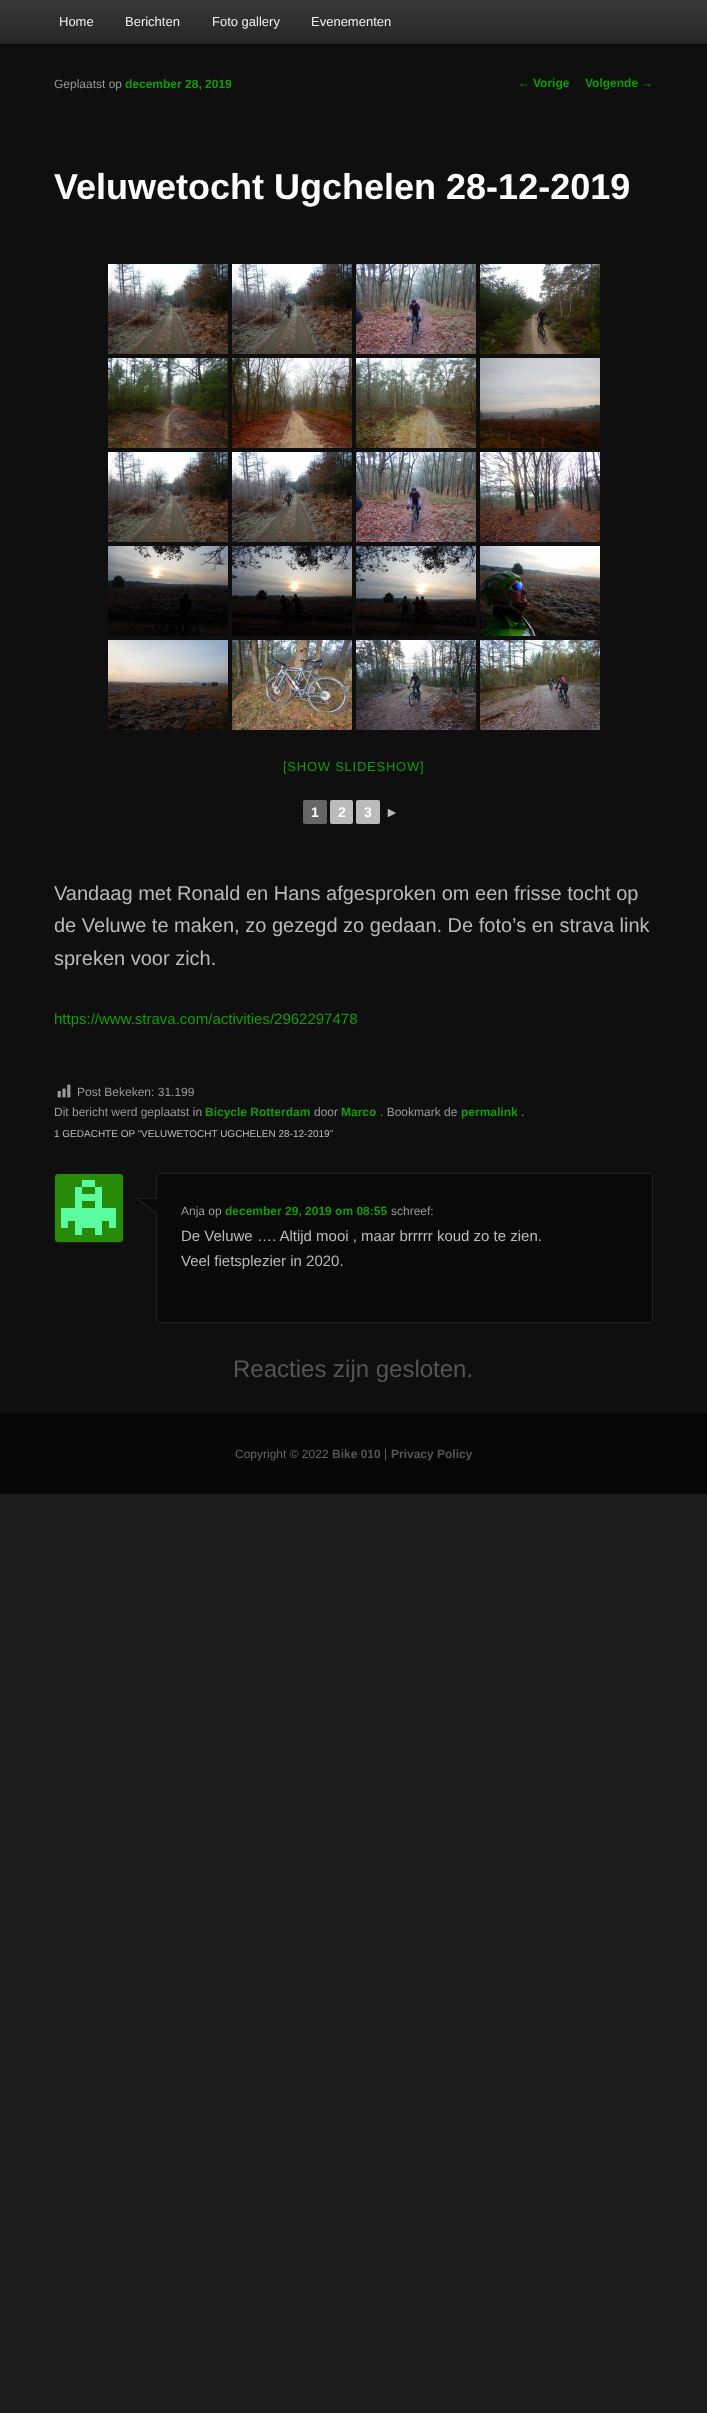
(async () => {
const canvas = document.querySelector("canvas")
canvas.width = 707
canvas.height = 2413
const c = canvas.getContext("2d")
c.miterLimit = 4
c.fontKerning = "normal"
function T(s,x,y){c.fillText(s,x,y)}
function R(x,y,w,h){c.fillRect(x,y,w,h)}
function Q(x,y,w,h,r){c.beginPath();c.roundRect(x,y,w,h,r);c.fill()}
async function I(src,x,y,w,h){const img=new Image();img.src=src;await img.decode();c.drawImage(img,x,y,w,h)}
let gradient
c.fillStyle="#1d1d1d"
R(0,0,707,2413)
c.fillStyle="#0f0f0f"
R(0,44,707,1370)
c.fillStyle="#00000066"
c.filter="blur(1px)"
c.beginPath()
c.rect(0,1,707,44)
c.fill()
c.filter="none"
gradient = c.createLinearGradient(354,0,354,43)
gradient.addColorStop(0,"#383838")
gradient.addColorStop(1,"#272727")
c.fillStyle = gradient
R(0,0,707,43)
c.fillStyle="#222"
R(0,43,707,1)
c.font="13px Liberation Sans"
c.fillStyle="#eee"
T("Home",59,26)
T("Berichten",125,26)
T("Foto gallery",212,26)
T("Evenementen",311,26)
c.font="12px Liberation Sans"
c.fillStyle="#149b07"
T("←",518,87)
c.font="bold 12px Liberation Sans"
T("Vorige",533,87)
T("Volgende",585,87)
c.font="12px Liberation Sans"
T("→",641,87)
c.fillStyle="#999"
T("Geplaatst op",54,88)
c.font="bold 12px Liberation Sans"
c.fillStyle="#149b07"
T("december 28, 2019",125,88)
c.font="bold 36px Liberation Sans"
c.fillStyle="#fff"
T("Veluwetocht Ugchelen 28-12-2019",54,199)
await I("1.png",108,264,120,90)
await I("2.png",232,264,120,90)
await I("3.png",356,264,120,90)
await I("4.png",480,264,120,90)
await I("5.png",108,358,120,90)
await I("6.png",232,358,120,90)
await I("7.png",356,358,120,90)
await I("8.png",480,358,120,90)
await I("1.png",108,452,120,90)
await I("2.png",232,452,120,90)
await I("3.png",356,452,120,90)
await I("9.png",480,452,120,90)
await I("10.png",108,546,120,90)
await I("11.png",232,546,120,90)
await I("12.png",356,546,120,90)
await I("13.png",480,546,120,90)
await I("14.png",108,640,120,90)
await I("15.png",232,640,120,90)
await I("16.png",356,640,120,90)
await I("17.png",480,640,120,90)
c.letterSpacing="0.75px"
c.font="13px Liberation Sans"
c.fillStyle="#149b07"
T("[SHOW SLIDESHOW]",283,771)
c.fillStyle="#666"
Q(303,800,24,24,2)
c.letterSpacing="0px"
c.font="bold 14px Liberation Sans"
c.fillStyle="#fff"
T("1",311,817)
c.fillStyle="#bbb"
Q(330,800,23,24,2)
c.fillStyle="#fff"
T("2",338,817)
c.fillStyle="#bbb"
Q(356,800,24,24,2)
c.fillStyle="#fff"
T("3",364,817)
c.fillStyle="#bbb"
T("►",385,817)
c.font="20px Liberation Sans"
T("Vandaag met Ronald en Hans afgesproken om een frisse tocht op",54,900)
T("de Veluwe te maken, zo gezegd zo gedaan. De foto’s en strava link",54,932)
T("spreken voor zich.",54,965)
c.font="15px Liberation Sans"
c.fillStyle="#149b07"
T("https://www.strava.com/activities/2962297478",54,1024)
await I("18.png",57,1084,14,14)
c.font="12px Liberation Sans"
c.fillStyle="#999"
T("Post Bekeken: 31.199",77,1096)
T("Dit bericht werd geplaatst in",54,1116)
c.font="bold 12px Liberation Sans"
c.fillStyle="#149b07"
T("Bicycle Rotterdam",205,1116)
c.font="12px Liberation Sans"
c.fillStyle="#999"
T("door",314,1116)
c.font="bold 12px Liberation Sans"
c.fillStyle="#149b07"
T("Marco",341,1116)
c.font="12px Liberation Sans"
c.fillStyle="#999"
T(". Bookmark de",380,1116)
c.font="bold 12px Liberation Sans"
c.fillStyle="#149b07"
T("permalink",461,1116)
c.font="12px Liberation Sans"
c.fillStyle="#999"
T(".",521,1116)
c.font="10px Liberation Sans"
c.fillStyle="#bbb"
T("1 GEDACHTE OP “VELUWETOCHT UGCHELEN 28-12-2019”",54,1137)
c.fillStyle="#090909"
c.beginPath()
c.roundRect(156.5,1173.5,496,149,2.5)
c.fill()
c.strokeStyle="#222"
c.stroke()
await I("19.png",136,1198,21,15)
c.fillStyle="#222"
c.filter="blur(1px)"
c.beginPath()
c.roundRect(55,1175,68,68,3)
c.fill()
c.filter="none"
await I("20.png",55,1174,68,68)
c.font="12px Liberation Sans"
c.fillStyle="#999"
T("Anja op",181,1215)
c.font="bold 12px Liberation Sans"
c.fillStyle="#149b07"
T("december 29, 2019 om 08:55",225,1215)
c.font="12px Liberation Sans"
c.fillStyle="#999"
T("schreef:",391,1215)
c.font="15px Liberation Sans"
c.fillStyle="#bbb"
T("De Veluwe …. Altijd mooi , maar brrrrr koud zo te zien.",181,1241)
T("Veel fietsplezier in 2020.",181,1266)
c.font="24px Liberation Sans"
c.fillStyle="#555"
T("Reacties zijn gesloten.",233,1377)
c.fillStyle="#060606"
R(0,1415,707,79)
c.fillStyle="#000"
R(0,1414,707,1)
c.font="12px Liberation Sans"
c.fillStyle="#666"
T("Copyright © 2022",235,1458)
c.font="bold 12px Liberation Sans"
c.fillStyle="#555"
T("Bike 010",332,1458)
c.font="12px Liberation Sans"
c.fillStyle="#666"
T("|",384,1458)
c.font="bold 12px Liberation Sans"
c.fillStyle="#555"
T("Privacy Policy",391,1458)
})()
